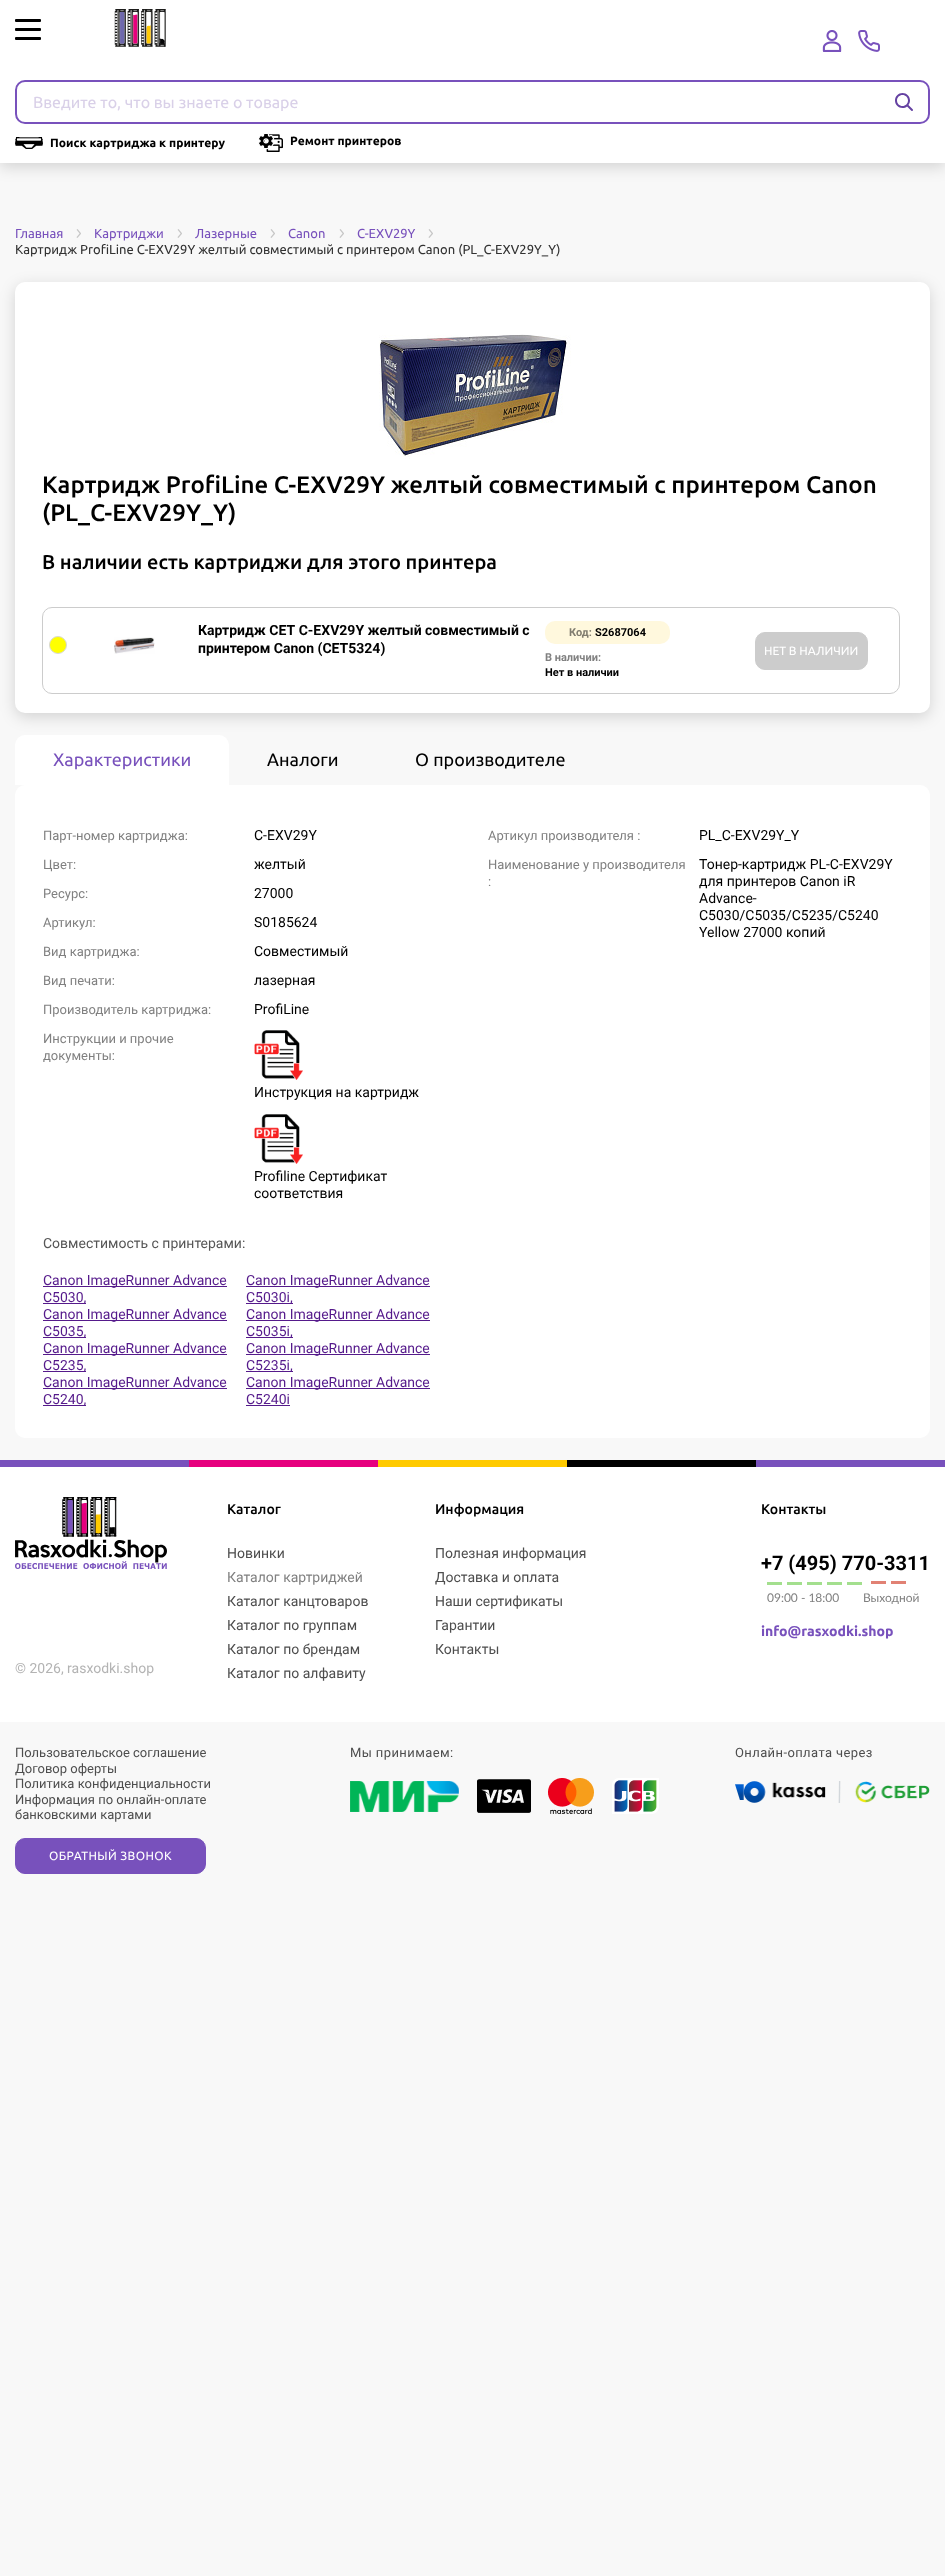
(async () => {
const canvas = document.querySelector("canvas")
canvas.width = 945
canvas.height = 2576
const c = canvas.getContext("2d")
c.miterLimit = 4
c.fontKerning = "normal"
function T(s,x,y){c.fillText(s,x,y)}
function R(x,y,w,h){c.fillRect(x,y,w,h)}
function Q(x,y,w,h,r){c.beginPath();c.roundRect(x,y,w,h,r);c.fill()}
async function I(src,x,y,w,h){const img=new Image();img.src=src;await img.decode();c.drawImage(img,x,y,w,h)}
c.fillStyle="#f8f8f8"
R(0,0,945,2576)
c.fillStyle="#00000026"
c.filter="blur(7.5px)"
c.beginPath()
c.rect(0,4,945,163)
c.fill()
c.filter="none"
c.fillStyle="#fff"
R(0,0,945,163)
c.fillStyle="#000"
Q(15,19,26,3,1)
Q(15,28,26,3,1)
Q(15,37,26,3,1)
await I("1.png",114,9,52,38)
await I("2.png",822,30,20,22)
await I("3.png",858,30,22,22)
c.beginPath()
c.roundRect(16,81,913,42,9)
c.strokeStyle="#7851bc"
c.lineWidth=2
c.stroke()
c.font="16px Ubuntu"
c.fillStyle="#d9d0e8"
T("Введите то, что вы знаете о товаре",33,108)
await I("4.png",895,93,18,18)
await I("5.png",15,137,28,12)
c.font="bold 12px Ubuntu"
c.fillStyle="#000"
T("Поиск картриджа к принтеру",50,147)
await I("6.png",258,133,25,19)
T("Ремонт принтеров",290,145)
c.font="13px Ubuntu"
c.fillStyle="#7851bc"
T("Главная",15,238)
await I("7.png",76,229,5,9)
T("Картриджи",94,238)
await I("7.png",177,229,5,9)
T("Лазерные",195,238)
await I("7.png",270,229,5,9)
T("Canon",288,238)
await I("7.png",339,229,5,9)
T("C-EXV29Y",357,238)
await I("7.png",428,229,5,9)
c.fillStyle="#323232"
T("Картридж ProfiLine C-EXV29Y желтый совместимый с принтером Canon (PL_C-EXV29Y_Y)",15,254)
c.fillStyle="#00000026"
c.filter="blur(7.5px)"
c.beginPath()
c.roundRect(15,286,915,431,10)
c.fill()
c.filter="none"
c.fillStyle="#fff"
Q(15,282,915,431,10)
await I("8.png",379,334,192,125)
c.font="500 24px Ubuntu"
c.fillStyle="#000"
T("Картридж ProfiLine C-EXV29Y желтый совместимый с принтером Canon",42,493)
T("(PL_C-EXV29Y_Y)",42,521)
c.font="500 20px Ubuntu"
T("В наличии есть картриджи для этого принтера",42,569)
c.beginPath()
c.roundRect(42.5,607.5,857,86,9.5)
c.strokeStyle="#ccc"
c.lineWidth=1
c.stroke()
c.fillStyle="#ff0"
c.beginPath()
c.arc(58,645,8.5,0,7)
c.fill()
c.strokeStyle="#d8d8d8"
c.stroke()
await I("9.png",114,637,41,17)
c.font="bold 14px Roboto"
c.fillStyle="#000"
T("Картридж CET C-EXV29Y желтый совместимый с",198,635)
T("принтером Canon (CET5324)",198,653)
c.fillStyle="#fff8dd"
Q(545,621,125,23,10)
c.font="bold 11px Roboto"
c.fillStyle="#807c6f"
T("Код:",569,636)
c.fillStyle="#000"
T("S2687064",595,636)
c.fillStyle="#808080"
T("В наличии:",545,661)
c.fillStyle="#000"
T("Нет в наличии",545,676)
c.fillStyle="#ccc"
c.beginPath()
c.roundRect(755.5,632.5,112,37,9.5)
c.fill()
c.strokeStyle="#ccc"
c.stroke()
c.font="12px Ubuntu"
c.fillStyle="#fff"
T("НЕТ В НАЛИЧИИ",764,655)
c.beginPath()
c.roundRect(15,735,214,50,[10,10,0,0])
c.fill()
c.font="18px Ubuntu"
c.fillStyle="#7851bc"
T("Характеристики",53,766)
c.fillStyle="#000"
T("Аналоги",267,766)
T("О производителе",415,766)
c.fillStyle="#fff"
Q(15,785,915,653,10)
c.font="13px Roboto"
c.fillStyle="#808080"
T("Парт-номер картриджа:",43,840)
c.font="14px Roboto"
c.fillStyle="#000"
T("C-EXV29Y",254,840)
c.font="13px Roboto"
c.fillStyle="#808080"
T("Цвет:",43,869)
c.font="14px Roboto"
c.fillStyle="#000"
T("желтый",254,869)
c.font="13px Roboto"
c.fillStyle="#808080"
T("Ресурс:",43,898)
c.font="14px Roboto"
c.fillStyle="#000"
T("27000",254,898)
c.font="13px Roboto"
c.fillStyle="#808080"
T("Артикул:",43,927)
c.font="14px Roboto"
c.fillStyle="#000"
T("S0185624",254,927)
c.font="13px Roboto"
c.fillStyle="#808080"
T("Вид картриджа:",43,956)
c.font="14px Roboto"
c.fillStyle="#000"
T("Совместимый",254,956)
c.font="13px Roboto"
c.fillStyle="#808080"
T("Вид печати:",43,985)
c.font="14px Roboto"
c.fillStyle="#000"
T("лазерная",254,985)
c.font="13px Roboto"
c.fillStyle="#808080"
T("Производитель картриджа:",43,1014)
c.font="14px Roboto"
c.fillStyle="#000"
T("ProfiLine",254,1014)
c.font="13px Roboto"
c.fillStyle="#808080"
T("Инструкции и прочие",43,1043)
T("документы:",43,1060)
await I("10.png",254,1030,49,50)
c.font="14px Roboto"
c.fillStyle="#000"
T("Инструкция на картридж",254,1097)
await I("10.png",254,1114,49,50)
T("Profiline Сертификат",254,1181)
T("соответствия",254,1198)
c.font="13px Roboto"
c.fillStyle="#808080"
T("Артикул производителя :",488,840)
c.font="14px Roboto"
c.fillStyle="#000"
T("PL_C-EXV29Y_Y",699,840)
c.font="13px Roboto"
c.fillStyle="#808080"
T("Наименование у производителя",488,869)
T(":",488,886)
c.font="14px Roboto"
c.fillStyle="#000"
T("Тонер-картридж PL-C-EXV29Y",699,869)
T("для принтеров Canon iR",699,886)
T("Advance-",699,903)
T("C5030/C5035/C5235/C5240",699,920)
T("Yellow 27000 копий",699,937)
c.fillStyle="#565656"
T("Совместимость с принтерами:",43,1248)
c.fillStyle="#551a8b"
R(43,1286,184,1)
T("Canon ImageRunner Advance",43,1285)
R(43,1303,43,1)
T("C5030,",43,1302)
R(246,1286,184,1)
T("Canon ImageRunner Advance",246,1285)
R(246,1303,47,1)
T("C5030i,",246,1302)
R(43,1320,184,1)
T("Canon ImageRunner Advance",43,1319)
R(43,1337,43,1)
T("C5035,",43,1336)
R(246,1320,184,1)
T("Canon ImageRunner Advance",246,1319)
R(246,1337,47,1)
T("C5035i,",246,1336)
R(43,1354,184,1)
T("Canon ImageRunner Advance",43,1353)
R(43,1371,43,1)
T("C5235,",43,1370)
R(246,1354,184,1)
T("Canon ImageRunner Advance",246,1353)
R(246,1371,47,1)
T("C5235i,",246,1370)
R(43,1388,184,1)
T("Canon ImageRunner Advance",43,1387)
R(43,1405,43,1)
T("C5240,",43,1404)
R(246,1388,184,1)
T("Canon ImageRunner Advance",246,1387)
T("C5240i",246,1404)
R(246,1405,44,1)
c.fillStyle="#7851bc"
R(0,1460,189,7)
c.fillStyle="#e6007e"
R(189,1460,189,7)
c.fillStyle="#ffca00"
R(378,1460,189,7)
c.fillStyle="#000"
R(567,1460,189,7)
c.fillStyle="#7851bc"
R(756,1460,189,7)
c.fillStyle="#fff"
R(0,1467,945,255)
c.font="500 14px Ubuntu"
c.fillStyle="#000"
T("Каталог",227,1514)
c.font="14px Roboto"
c.fillStyle="#4d4d4d"
T("Новинки",227,1558)
c.fillStyle="#808080"
T("Каталог картриджей",227,1582)
c.fillStyle="#4d4d4d"
T("Каталог канцтоваров",227,1606)
T("Каталог по группам",227,1630)
T("Каталог по брендам",227,1654)
T("Каталог по алфавиту",227,1678)
c.font="500 14px Ubuntu"
c.fillStyle="#000"
T("Информация",435,1514)
c.font="14px Roboto"
c.fillStyle="#4d4d4d"
T("Полезная информация",435,1558)
T("Доставка и оплата",435,1582)
T("Наши сертификаты",435,1606)
T("Гарантии",435,1630)
T("Контакты",435,1654)
c.font="500 14px Ubuntu"
c.fillStyle="#000"
T("Контакты",761,1514)
c.font="bold 20px Roboto"
T("+7 (495) 770-3311",761,1570)
await I("11.png",767,1582,95,3)
c.font="12px Lato"
c.fillStyle="#808080"
T("09:00 - 18:00",767,1602)
await I("12.png",871,1581,35,3)
T("Выходной",863,1602)
c.font="bold 14px Ubuntu"
c.fillStyle="#7851bc"
T("info@rasxodki.shop",761,1636)
await I("13.png",15,1497,152,72)
c.font="14px Roboto"
c.fillStyle="#b3b3b3"
T("© 2026, rasxodki.shop",15,1673)
c.font="13px Roboto"
c.fillStyle="#4d4d4d"
T("Пользовательское соглашение",15,1757)
T("Договор оферты",15,1773)
T("Политика конфиденциальности",15,1788)
T("Информация по онлайн-оплате",15,1804)
T("банковскими картами",15,1819)
c.letterSpacing="0.4px"
T("Мы принимаем:",350,1757)
await I("14.png",350,1781,109,31)
await I("15.png",477,1779,54,34)
await I("16.png",548,1778,46,36)
await I("17.png",612,1778,47,36)
T("Онлайн-оплата через",735,1757)
await I("18.png",735,1781,195,22)
c.fillStyle="#7851bc"
c.beginPath()
c.roundRect(15.5,1838.5,190,35,9.5)
c.fill()
c.strokeStyle="#7851bc"
c.stroke()
c.font="12px Ubuntu"
c.fillStyle="#fff"
T("ОБРАТНЫЙ ЗВОНОК",49,1860)
})()
